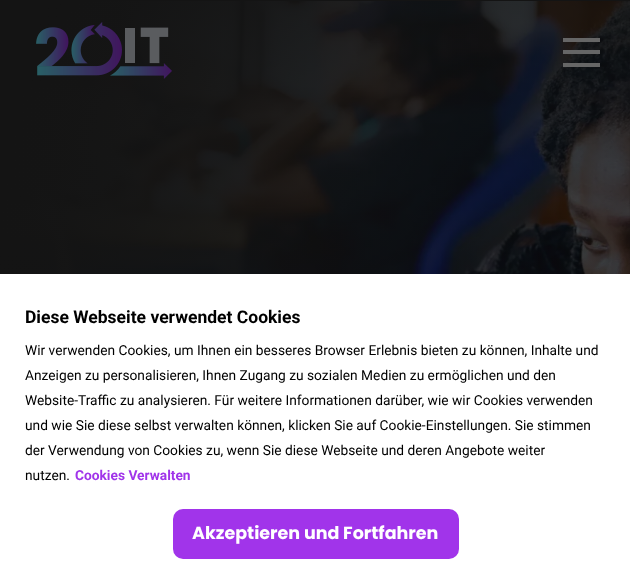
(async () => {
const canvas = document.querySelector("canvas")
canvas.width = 630
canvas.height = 583
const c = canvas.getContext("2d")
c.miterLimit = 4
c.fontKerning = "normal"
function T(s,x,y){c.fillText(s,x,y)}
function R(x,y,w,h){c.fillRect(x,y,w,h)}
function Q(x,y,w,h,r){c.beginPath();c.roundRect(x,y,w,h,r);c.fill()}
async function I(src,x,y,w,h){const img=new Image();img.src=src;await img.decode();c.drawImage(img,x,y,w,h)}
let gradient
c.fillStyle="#141414"
R(0,0,630,583)
await I("1.png",0,1,630,273)
gradient = c.createRadialGradient(630,341.39,0,630,341.39,682)
gradient.addColorStop(0,"#14141400")
gradient.addColorStop(1,"#141414")
c.fillStyle = gradient
c.beginPath()
c.rect(0,1,630,273)
c.save()
c.clip()
c.scale(1,1740 / 682)
c.fillRect(0,0,630,229)
c.restore()
await I("2.png",36,22,136,57)
c.fillStyle="#666"
R(563,50,37,4)
R(563,38,37,4)
R(563,63,37,4)
c.fillStyle="#fff"
R(0,274,630,309)
c.font="bold 17.5px Roboto"
c.fillStyle="#000"
T("Diese Webseite verwendet Cookies",25,323)
c.font="13.75px Roboto"
T("Wir verwenden Cookies, um Ihnen ein besseres Browser Erlebnis bieten zu können, Inhalte und",25,355)
T("Anzeigen zu personalisieren, Ihnen Zugang zu sozialen Medien zu ermöglichen und den",25,380)
T("Website-Traffic zu analysieren. Für weitere Informationen darüber, wie wir Cookies verwenden",25,405)
T("und wie Sie diese selbst verwalten können, klicken Sie auf Cookie-Einstellungen. Sie stimmen",25,430)
T("der Verwendung von Cookies zu, wenn Sie diese Webseite und deren Angebote weiter",25,455)
T("nutzen.",25,480)
c.font="bold 13.75px Roboto"
c.fillStyle="#a134ea"
T("Cookies Verwalten",75,480)
Q(173,509,286,50,10)
c.font="bold 17.5px Poppins"
c.fillStyle="#fff"
T("Akzeptieren und Fortfahren",192,539)
})()
